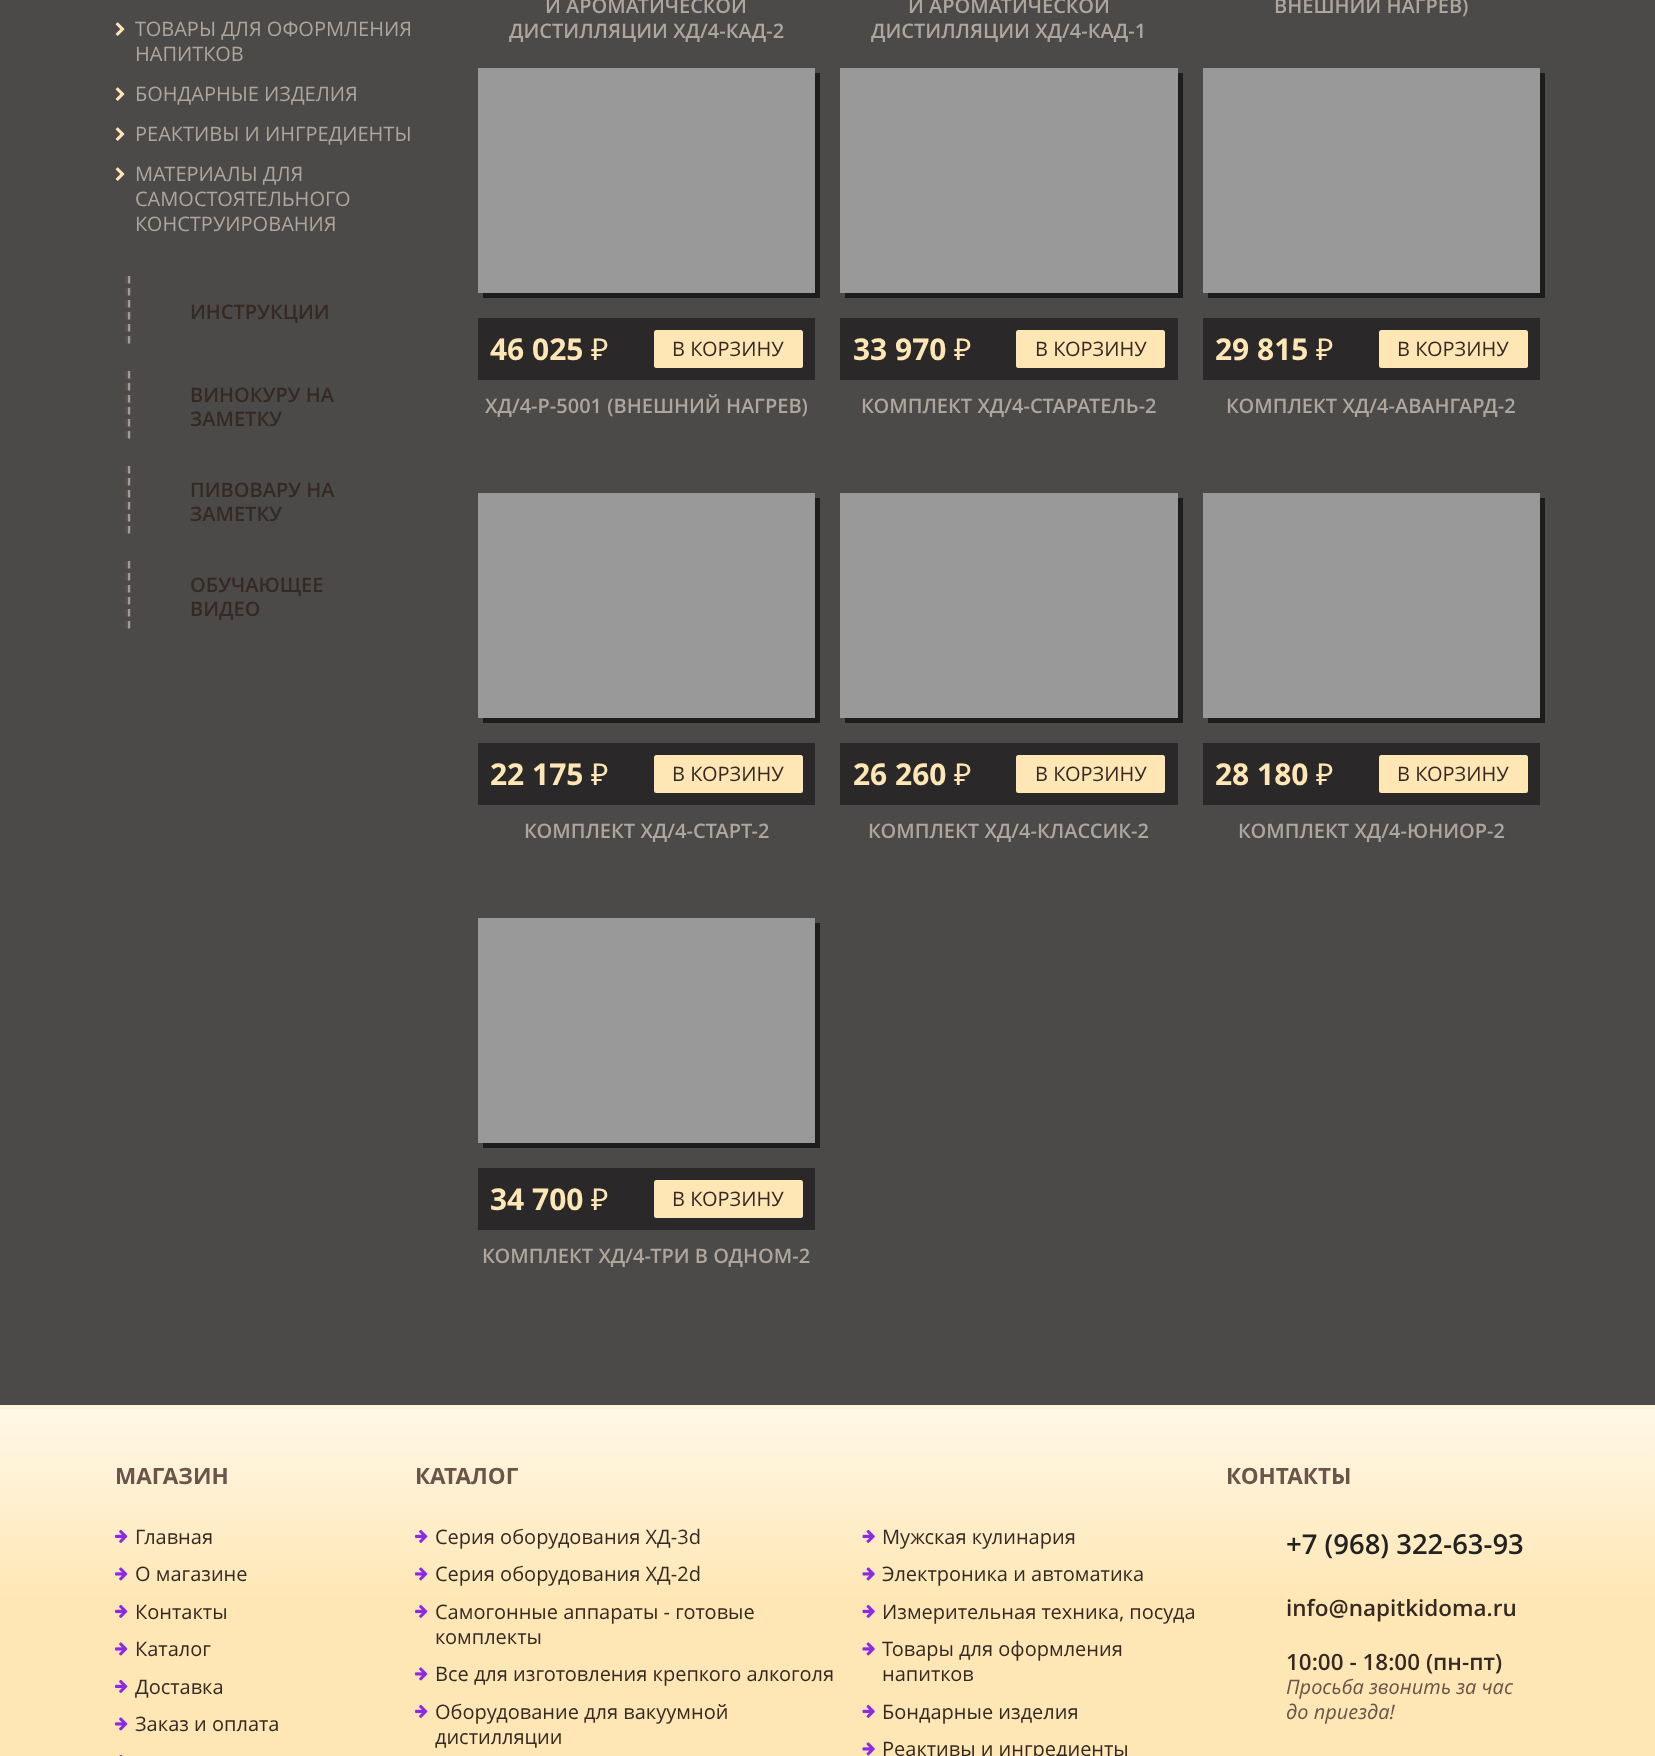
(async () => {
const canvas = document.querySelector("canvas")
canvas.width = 1655
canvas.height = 1756
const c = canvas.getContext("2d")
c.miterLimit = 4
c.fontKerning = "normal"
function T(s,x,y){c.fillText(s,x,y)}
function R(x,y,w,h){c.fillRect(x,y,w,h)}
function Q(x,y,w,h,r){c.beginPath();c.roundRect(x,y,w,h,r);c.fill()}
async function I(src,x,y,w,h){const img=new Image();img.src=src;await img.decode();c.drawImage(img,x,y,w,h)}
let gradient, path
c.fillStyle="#4c4949"
R(0,0,1655,1756)
await I("1.png",115,22,10,14)
c.font="20px Open Sans"
c.fillStyle="#aea69c"
T("ТОВАРЫ ДЛЯ ОФОРМЛЕНИЯ",135,36)
T("НАПИТКОВ",135,61)
await I("1.png",115,87,10,14)
T("БОНДАРНЫЕ ИЗДЕЛИЯ",135,101)
await I("1.png",115,127,10,14)
T("РЕАКТИВЫ И ИНГРЕДИЕНТЫ",135,141)
await I("1.png",115,167,10,14)
T("МАТЕРИАЛЫ ДЛЯ",135,181)
T("САМОСТОЯТЕЛЬНОГО",135,206)
T("КОНСТРУИРОВАНИЯ",135,231)
path = new Path2D("M129 276v68")
c.strokeStyle="#9d9b9b"
c.lineWidth=2.5
c.setLineDash([7.5,4.5])
c.stroke(path)
path = new Path2D("M126 276v68")
c.strokeStyle="#594e49"
c.stroke(path)
c.font="600 20px Open Sans"
c.fillStyle="#352a23"
T("ИНСТРУКЦИИ",190,319)
path = new Path2D("M129 371v68")
c.strokeStyle="#9d9b9b"
c.stroke(path)
path = new Path2D("M126 371v68")
c.strokeStyle="#594e49"
c.stroke(path)
T("ВИНОКУРУ НА",190,402)
T("ЗАМЕТКУ",190,426)
path = new Path2D("M129 466v68")
c.strokeStyle="#9d9b9b"
c.stroke(path)
path = new Path2D("M126 466v68")
c.strokeStyle="#594e49"
c.stroke(path)
T("ПИВОВАРУ НА",190,497)
T("ЗАМЕТКУ",190,521)
path = new Path2D("M129 561v68")
c.strokeStyle="#9d9b9b"
c.stroke(path)
path = new Path2D("M126 561v68")
c.strokeStyle="#594e49"
c.stroke(path)
T("ОБУЧАЮЩЕЕ",190,592)
T("ВИДЕО",190,616)
c.fillStyle="#aea69c"
T("И АРОМАТИЧЕСКОЙ",545,13)
T("ДИСТИЛЛЯЦИИ ХД/4-КАД-2",509,38)
T("И АРОМАТИЧЕСКОЙ",908,13)
T("ДИСТИЛЛЯЦИИ ХД/4-КАД-1",871,38)
T("ВНЕШНИЙ НАГРЕВ)",1274,13)
c.fillStyle="#1e1d1d"
path = new Path2D("M483 292v6h337v-225h-5v219z")
c.fill(path)
c.fillStyle="#999"
R(478,68,337,225)
c.fillStyle="#2a2828"
R(478,318,337,62)
c.font="bold 30px Open Sans"
c.fillStyle="#ffe6b5"
T("46 025",490,360)
c.font="30px Noto Sans"
T("₽",591,360)
Q(654,330,149,38,2.5)
c.font="20px Open Sans"
c.fillStyle="#352a23"
T("В КОРЗИНУ",672,356)
c.font="600 20px Open Sans"
c.fillStyle="#aea69c"
T("ХД/4-Р-5001 (ВНЕШНИЙ НАГРЕВ)",485,413)
c.fillStyle="#1e1d1d"
path = new Path2D("M845 292v6h338v-225h-5v219z")
c.fill(path)
c.fillStyle="#999"
R(840,68,338,225)
c.fillStyle="#2a2828"
R(840,318,338,62)
c.font="bold 30px Open Sans"
c.fillStyle="#ffe6b5"
T("33 970",853,360)
c.font="30px Noto Sans"
T("₽",954,360)
Q(1016,330,149,38,2.5)
c.font="20px Open Sans"
c.fillStyle="#352a23"
T("В КОРЗИНУ",1035,356)
c.font="600 20px Open Sans"
c.fillStyle="#aea69c"
T("КОМПЛЕКТ ХД/4-СТАРАТЕЛЬ-2",861,413)
c.fillStyle="#1e1d1d"
path = new Path2D("M1208 292v6h337v-225h-5v219z")
c.fill(path)
c.fillStyle="#999"
R(1203,68,337,225)
c.fillStyle="#2a2828"
R(1203,318,337,62)
c.font="bold 30px Open Sans"
c.fillStyle="#ffe6b5"
T("29 815",1215,360)
c.font="30px Noto Sans"
T("₽",1316,360)
Q(1379,330,149,38,2.5)
c.font="20px Open Sans"
c.fillStyle="#352a23"
T("В КОРЗИНУ",1397,356)
c.font="600 20px Open Sans"
c.fillStyle="#aea69c"
T("КОМПЛЕКТ ХД/4-АВАНГАРД-2",1226,413)
c.fillStyle="#1e1d1d"
path = new Path2D("M483 718v5h337v-225h-5v220z")
c.fill(path)
c.fillStyle="#999"
R(478,493,337,225)
c.fillStyle="#2a2828"
R(478,743,337,62)
c.font="bold 30px Open Sans"
c.fillStyle="#ffe6b5"
T("22 175",490,785)
c.font="30px Noto Sans"
T("₽",591,785)
Q(654,755,149,38,2.5)
c.font="20px Open Sans"
c.fillStyle="#352a23"
T("В КОРЗИНУ",672,781)
c.font="600 20px Open Sans"
c.fillStyle="#aea69c"
T("КОМПЛЕКТ ХД/4-СТАРТ-2",524,838)
c.fillStyle="#1e1d1d"
path = new Path2D("M845 718v5h338v-225h-5v220z")
c.fill(path)
c.fillStyle="#999"
R(840,493,338,225)
c.fillStyle="#2a2828"
R(840,743,338,62)
c.font="bold 30px Open Sans"
c.fillStyle="#ffe6b5"
T("26 260",853,785)
c.font="30px Noto Sans"
T("₽",954,785)
Q(1016,755,149,38,2.5)
c.font="20px Open Sans"
c.fillStyle="#352a23"
T("В КОРЗИНУ",1035,781)
c.font="600 20px Open Sans"
c.fillStyle="#aea69c"
T("КОМПЛЕКТ ХД/4-КЛАССИК-2",868,838)
c.fillStyle="#1e1d1d"
path = new Path2D("M1208 718v5h337v-225h-5v220z")
c.fill(path)
c.fillStyle="#999"
R(1203,493,337,225)
c.fillStyle="#2a2828"
R(1203,743,337,62)
c.font="bold 30px Open Sans"
c.fillStyle="#ffe6b5"
T("28 180",1215,785)
c.font="30px Noto Sans"
T("₽",1316,785)
Q(1379,755,149,38,2.5)
c.font="20px Open Sans"
c.fillStyle="#352a23"
T("В КОРЗИНУ",1397,781)
c.font="600 20px Open Sans"
c.fillStyle="#aea69c"
T("КОМПЛЕКТ ХД/4-ЮНИОР-2",1238,838)
c.fillStyle="#1e1d1d"
path = new Path2D("M483 1142v6h337v-225h-5v219z")
c.fill(path)
c.fillStyle="#999"
R(478,918,337,225)
c.fillStyle="#2a2828"
R(478,1168,337,62)
c.font="bold 30px Open Sans"
c.fillStyle="#ffe6b5"
T("34 700",490,1210)
c.font="30px Noto Sans"
T("₽",591,1210)
Q(654,1180,149,38,2.5)
c.font="20px Open Sans"
c.fillStyle="#352a23"
T("В КОРЗИНУ",672,1206)
c.font="600 20px Open Sans"
c.fillStyle="#aea69c"
T("КОМПЛЕКТ ХД/4-ТРИ В ОДНОМ-2",482,1263)
c.fillStyle="#ffe6b5"
R(0,1603,1655,153)
c.fillStyle="#fff3db"
R(0,1405,1655,5)
gradient = c.createLinearGradient(828,1410,828,1603)
gradient.addColorStop(0,"#fff7e6")
gradient.addColorStop(1,"#ffe7b4")
c.fillStyle = gradient
R(0,1411,1655,192)
gradient = c.createLinearGradient(828,1410,828,1603)
gradient.addColorStop(0,"#fffbf3")
gradient.addColorStop(1,"#fff3da")
c.fillStyle = gradient
R(0,1410,1655,1)
c.font="bold 22.5px Open Sans"
c.fillStyle="#695549"
T("МАГАЗИН",115,1484)
await I("2.png",115,1529,13,14)
c.font="20px Open Sans"
c.fillStyle="#352a23"
T("Главная",135,1544)
await I("3.png",115,1567,13,14)
T("О магазине",135,1581)
await I("4.png",115,1604,13,14)
T("Контакты",135,1619)
await I("5.png",115,1642,13,14)
T("Каталог",135,1656)
await I("4.png",115,1679,13,14)
T("Доставка",135,1694)
await I("5.png",115,1717,13,14)
T("Заказ и оплата",135,1731)
await I("6.png",119,1754,4,2)
c.font="bold 22.5px Open Sans"
c.fillStyle="#695549"
T("КАТАЛОГ",415,1484)
await I("2.png",415,1529,13,14)
c.font="20px Open Sans"
c.fillStyle="#352a23"
T("Серия оборудования ХД-3d",435,1544)
await I("3.png",415,1567,13,14)
T("Серия оборудования ХД-2d",435,1581)
await I("4.png",415,1604,13,14)
T("Самогонные аппараты - готовые",435,1619)
T("комплекты",435,1644)
await I("5.png",415,1667,13,14)
T("Все для изготовления крепкого алкоголя",435,1681)
await I("4.png",415,1704,13,14)
T("Оборудование для вакуумной",435,1719)
T("дистилляции",435,1744)
await I("7.png",862,1529,13,14)
T("Мужская кулинария",882,1544)
await I("8.png",862,1567,13,14)
T("Электроника и автоматика",882,1581)
await I("9.png",862,1604,13,14)
T("Измерительная техника, посуда",882,1619)
await I("10.png",862,1642,13,14)
T("Товары для оформления",882,1656)
T("напитков",882,1681)
await I("9.png",862,1704,13,14)
T("Бондарные изделия",882,1719)
await I("10.png",862,1742,13,14)
T("Реактивы и ингредиенты",882,1756)
c.font="bold 22.5px Open Sans"
c.fillStyle="#695549"
T("КОНТАКТЫ",1226,1484)
c.font="600 27.5px Open Sans"
c.fillStyle="#222"
T("+7 (968) 322-63-93",1286,1554)
c.font="600 22.5px Open Sans"
c.fillStyle="#352a23"
T("info@napitkidoma.ru",1286,1616)
T("10:00 - 18:00 (пн-пт)",1286,1670)
c.font="italic 20px Open Sans"
c.fillStyle="#695549"
T("Просьба звонить за час",1286,1694)
T("до приезда!",1286,1719)
})()
